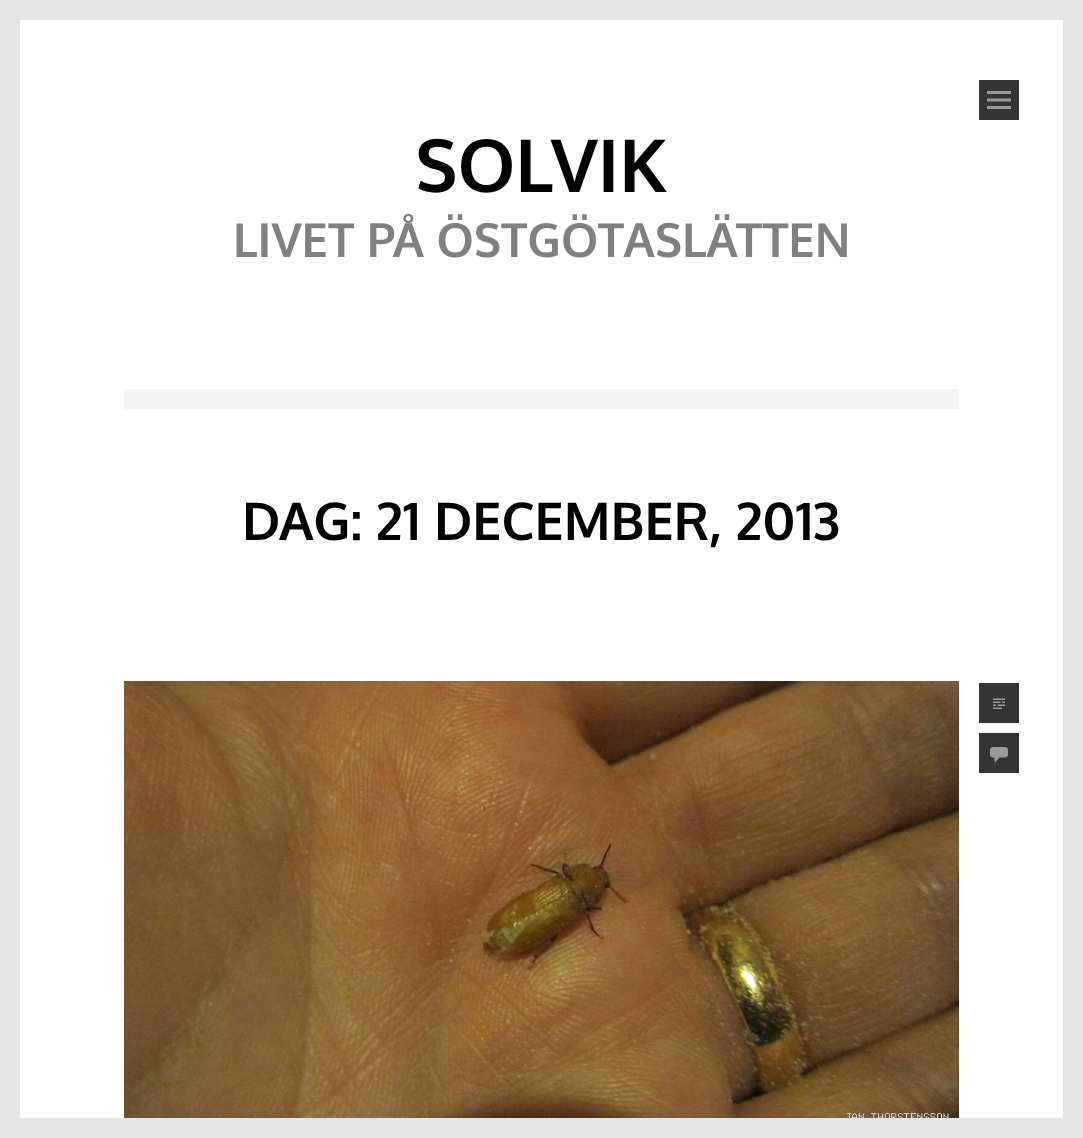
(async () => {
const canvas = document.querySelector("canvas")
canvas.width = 1083
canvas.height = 1138
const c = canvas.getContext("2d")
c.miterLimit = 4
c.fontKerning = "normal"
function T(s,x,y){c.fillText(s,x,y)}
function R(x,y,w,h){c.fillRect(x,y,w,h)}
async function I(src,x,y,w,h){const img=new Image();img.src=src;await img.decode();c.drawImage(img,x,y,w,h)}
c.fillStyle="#fff"
R(0,0,1083,1138)
c.fillStyle="#e5e5e5"
R(1063,20,20,1098)
R(0,20,20,1098)
R(0,0,1083,20)
c.fillStyle="#f5f5f5"
R(124,389,835,20)
c.fillStyle="#343434"
R(979,80,40,40)
await I("1.png",987,91,24,18)
c.font="bold 73px Oxygen"
c.fillStyle="#000"
T("SOLVIK",415,192)
c.font="bold 47px Oxygen"
c.fillStyle="#808080"
T("LIVET PÅ ÖSTGÖTASLÄTTEN",233,257)
c.font="bold 52px Oxygen"
c.fillStyle="#000"
T("DAG: 21 DECEMBER, 2013",242,540)
await I("2.png",124,681,835,437)
c.fillStyle="#343434"
R(979,683,40,40)
await I("3.png",993,698,12,11)
R(979,733,40,40)
await I("4.png",990,747,18,16)
c.fillStyle="#e5e5e5"
R(0,1118,1083,20)
})()
